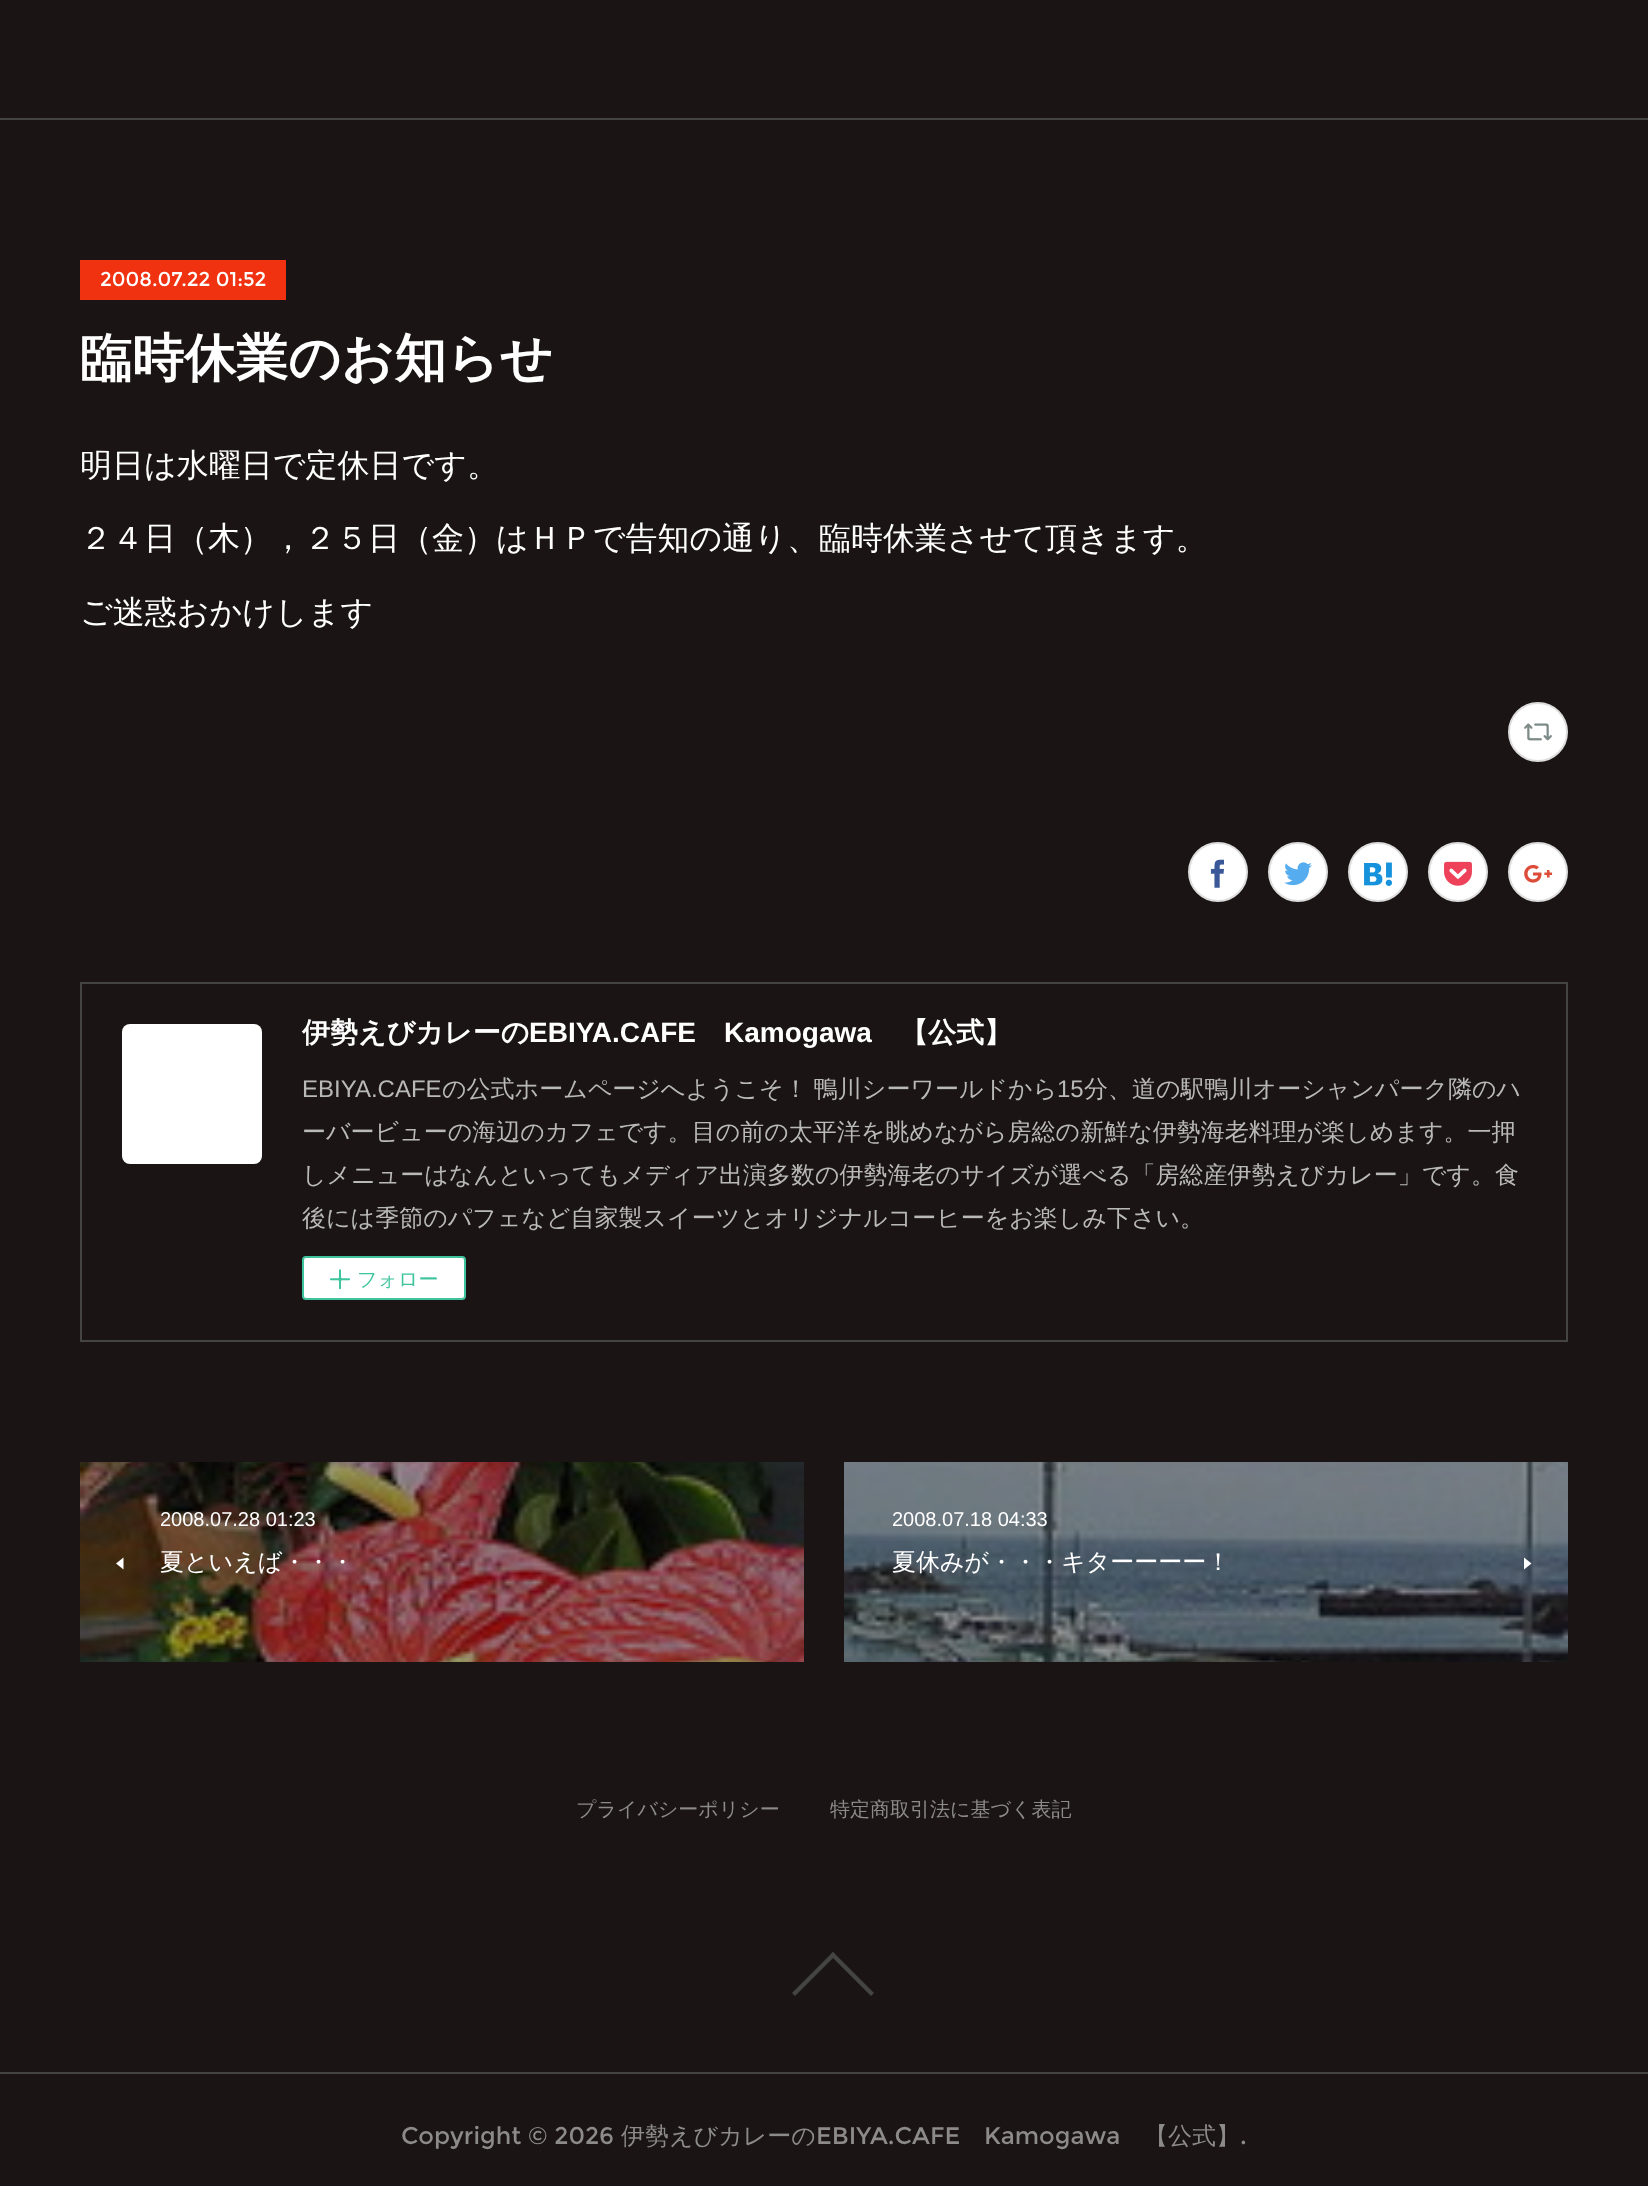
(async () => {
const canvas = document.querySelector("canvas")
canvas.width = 1648
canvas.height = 2186
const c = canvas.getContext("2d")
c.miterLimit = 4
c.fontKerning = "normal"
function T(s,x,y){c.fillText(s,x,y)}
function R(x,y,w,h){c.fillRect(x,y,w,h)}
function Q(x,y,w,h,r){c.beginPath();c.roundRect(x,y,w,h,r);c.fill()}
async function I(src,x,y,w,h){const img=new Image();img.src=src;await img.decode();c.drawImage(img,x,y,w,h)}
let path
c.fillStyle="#1a1414"
R(0,0,1648,2186)
c.fillStyle="#444"
R(0,118,1648,2)
c.fillStyle="#f03211"
R(80,260,206,40)
c.font="20px Montserrat"
c.fillStyle="#fff"
T("2008.07.22 01:52",100,286)
c.font="bold 52px WenQuanYi Zen Hei"
T("臨時休業のお知らせ",80,376)
c.font="500 32px WenQuanYi Zen Hei"
T("明日は水曜日で定休日です。",80,476)
T("２４日（木），２５日（金）はＨＰで告知の通り、臨時休業させて頂きます。",80,549)
T("ご迷惑おかけします",80,623)
c.beginPath()
c.arc(1538,732,29,0,7)
c.fill()
c.strokeStyle="#ddd"
c.lineWidth=2
c.stroke()
await I("1.png",1524,723,28,18)
c.beginPath()
c.arc(1218,872,29,0,7)
c.fill()
c.stroke()
await I("2.png",1210,859,14,29)
c.beginPath()
c.arc(1298,872,29,0,7)
c.fill()
c.stroke()
await I("3.png",1284,862,28,24)
c.beginPath()
c.arc(1378,872,29,0,7)
c.fill()
c.stroke()
await I("4.png",1364,862,28,24)
c.beginPath()
c.arc(1458,872,29,0,7)
c.fill()
c.stroke()
await I("5.png",1444,861,28,25)
c.beginPath()
c.arc(1538,872,29,0,7)
c.fill()
c.stroke()
await I("6.png",1524,864,29,19)
c.strokeStyle="#444"
c.strokeRect(81,983,1486,358)
Q(122,1024,140,140,8)
c.font="bold 28px WenQuanYi Zen Hei"
T("伊勢えびカレーの",302,1042)
c.font="bold 28px Liberation Sans"
T("EBIYA.CAFE",529,1042)
T("Kamogawa",724,1042)
c.font="bold 28px WenQuanYi Zen Hei"
T("【公式】",900,1042)
c.font="24px Liberation Sans"
c.fillStyle="#bab9b9"
T("EBIYA.CAFE",302,1097)
c.wordSpacing="-1px"
c.font="500 24px WenQuanYi Zen Hei"
T("の公式ホームページへようこそ！ 鴨川シーワールドから",442,1097)
c.wordSpacing="0px"
c.font="24px Liberation Sans"
T("15",1057,1097)
c.font="500 24px WenQuanYi Zen Hei"
T("分、道の駅鴨川オーシャンパーク隣のハ",1084,1097)
T("ーバービューの海辺のカフェです。目の前の太平洋を眺めながら房総の新鮮な伊勢海老料理が楽しめます。一押",302,1140)
T("しメニューはなんといってもメディア出演多数の伊勢海老のサイズが選べる「房総産伊勢えびカレー」です。食",302,1183)
T("後には季節のパフェなど自家製スイーツとオリジナルコーヒーをお楽しみ下さい。",302,1226)
c.fillStyle="#fff"
c.beginPath()
c.roundRect(303,1257,162,42,3)
c.fill()
c.strokeStyle="#3dc49d"
c.stroke()
await I("7.png",330,1269,20,21)
c.font="500 20px WenQuanYi Zen Hei"
c.fillStyle="#3dc49d"
T("フォロー",357,1286)
await I("8.png",80,1462,724,200)
c.font="20px Liberation Sans"
c.fillStyle="#fff"
T("2008.07.28 01:23",160,1526)
path = new Path2D("M123.5 1569.5v-12l-7.5 6z")
c.fill(path)
c.font="500 24px WenQuanYi Zen Hei"
T("夏といえば・・・",160,1570)
await I("9.png",844,1462,724,200)
c.font="20px Liberation Sans"
T("2008.07.18 04:33",892,1526)
c.font="500 24px WenQuanYi Zen Hei"
T("夏休みが・・・キターーーー！",892,1570)
path = new Path2D("M1524 1557.5v12l7.5-6z")
c.fill(path)
c.font="500 20px WenQuanYi Zen Hei"
c.fillStyle="#8d8a8a"
T("プライバシーポリシー",576,1816)
T("特定商取引法に基づく表記",830,1816)
c.fillStyle="#444"
path = new Path2D("M792 1993l41-41l3 3l-41 41z")
c.fill(path)
path = new Path2D("M830 1955l3-3l41 41l-3 3z")
c.fill(path)
R(0,2072,1648,2)
c.font="24px Montserrat"
c.fillStyle="#8d8a8a"
T("Copyright © 2026",401,2144)
c.font="500 24px WenQuanYi Zen Hei"
T("伊勢えびカレーの",621,2144)
c.font="24px Montserrat"
T("EBIYA.CAFE",816,2144)
T("Kamogawa",984,2144)
c.font="500 24px WenQuanYi Zen Hei"
T("【公式】",1144,2144)
c.font="24px Montserrat"
T(".",1240,2144)
})()
